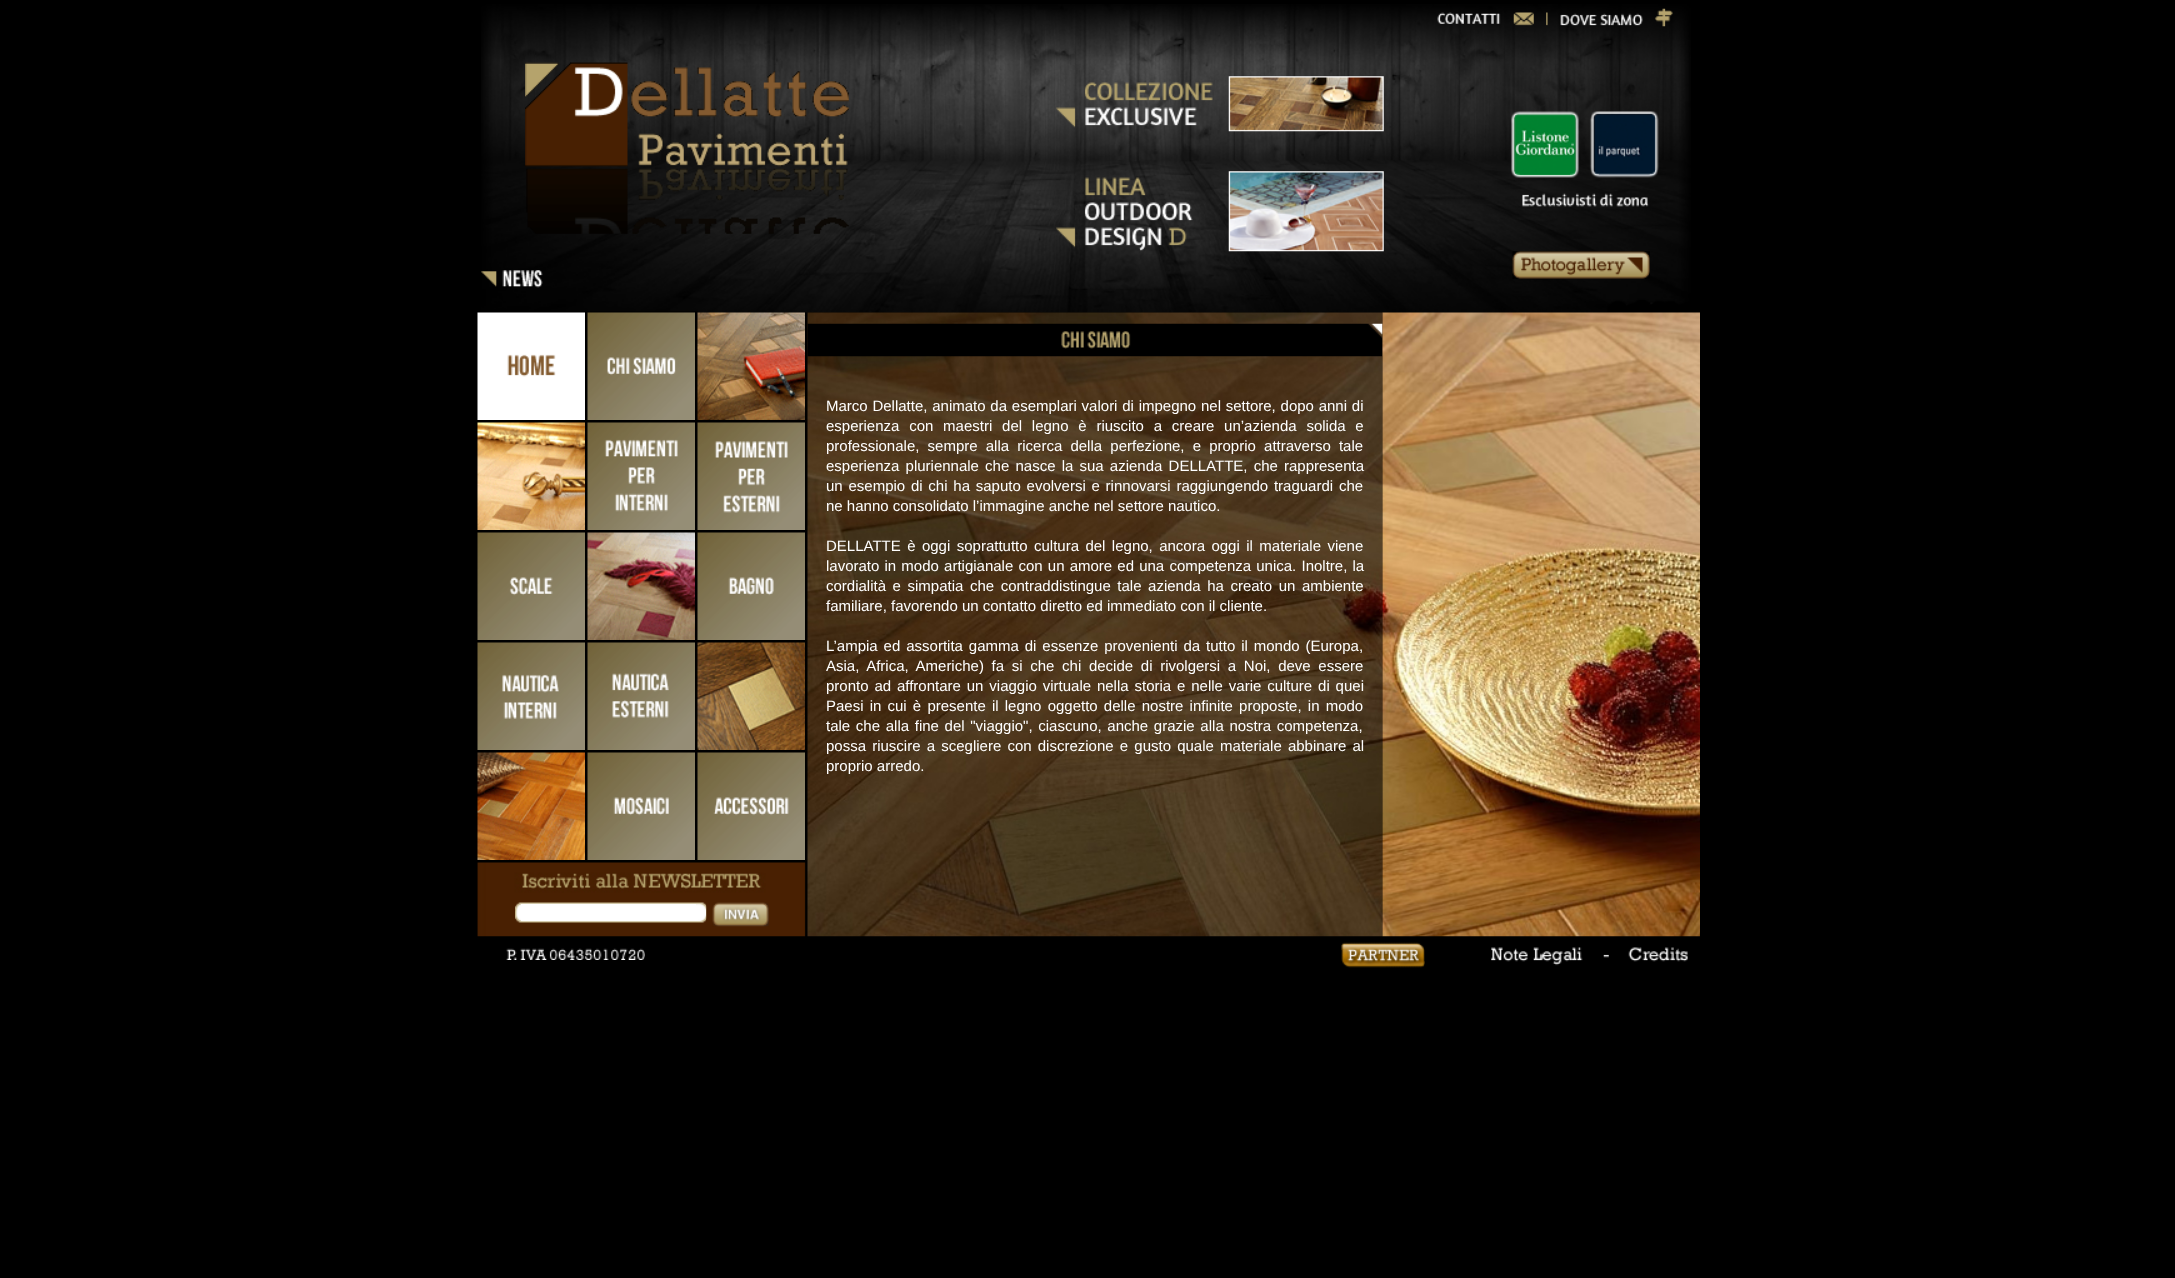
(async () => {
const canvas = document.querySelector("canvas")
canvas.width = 2175
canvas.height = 1278
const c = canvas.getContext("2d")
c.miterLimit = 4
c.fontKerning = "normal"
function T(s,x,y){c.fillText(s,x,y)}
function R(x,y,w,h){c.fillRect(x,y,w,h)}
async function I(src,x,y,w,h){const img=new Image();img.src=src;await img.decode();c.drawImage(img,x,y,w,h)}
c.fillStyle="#000"
R(0,0,2175,1278)
await I("1.png",481,4,1210,309)
await I("2.png",525,62,324,172)
await I("3.png",481,270,62,18)
await I("4.png",1056,76,328,56)
await I("5.png",1056,171,328,81)
await I("6.png",1437,12,97,14)
await I("7.png",1546,12,2,14)
await I("8.png",1560,8,113,19)
await I("9.png",1512,251,138,28)
await I("10.png",477,312,108,108)
await I("11.png",587,312,108,108)
await I("12.png",697,312,108,108)
await I("13.png",477,422,108,108)
await I("14.png",587,422,108,108)
await I("15.png",697,422,108,108)
await I("16.png",477,532,108,108)
await I("17.png",587,532,108,108)
await I("18.png",697,532,108,108)
await I("19.png",477,642,108,108)
await I("20.png",587,642,108,108)
await I("21.png",697,642,108,108)
await I("22.png",477,752,108,108)
await I("23.png",587,752,108,108)
await I("24.png",697,752,108,108)
await I("25.png",477,862,329,75)
await I("26.png",515,902,192,21)
c.fillStyle="#fff"
R(521,904,175,17)
await I("27.png",712,902,57,25)
await I("28.png",807,312,576,625)
await I("29.png",807,323,576,34)
c.wordSpacing="0.6px"
c.font="15px Liberation Sans"
T("Marco Dellatte, animato da esemplari valori di impegno nel settore, dopo anni di",826,411)
c.wordSpacing="5.6px"
T("esperienza con maestri del legno è riuscito a creare un’azienda solida e",826,431)
c.wordSpacing="4px"
T("professionale, sempre alla ricerca della perfezione, e proprio attraverso tale",826,451)
c.wordSpacing="2px"
T("esperienza pluriennale che nasce la sua azienda DELLATTE, che rappresenta",826,471)
c.wordSpacing="1.6px"
T("un esempio di chi ha saputo evolversi e rinnovarsi raggiungendo traguardi che",826,491)
c.wordSpacing="0px"
T("ne hanno consolidato l’immagine anche nel settore nautico.",826,511)
c.wordSpacing="2.25px"
T("DELLATTE è oggi soprattutto cultura del legno, ancora oggi il materiale viene",826,551)
c.wordSpacing="1px"
T("lavorato in modo artigianale con un amore ed una competenza unica. Inoltre, la",826,571)
c.wordSpacing="2.4px"
T("cordialità e simpatia che contraddistingue tale azienda ha creato un ambiente",826,591)
c.wordSpacing="0px"
T("familiare, favorendo un contatto diretto ed immediato con il cliente.",826,611)
c.wordSpacing="1.75px"
T("L’ampia ed assortita gamma di essenze provenienti da tutto il mondo (Europa,",826,651)
c.wordSpacing="3.5px"
T("Asia, Africa, Americhe) fa si che chi decide di rivolgersi a Noi, deve essere",826,671)
c.wordSpacing="1.7px"
T("pronto ad affrontare un viaggio virtuale nella storia e nelle varie culture di quei",826,691)
c.wordSpacing="2px"
T("Paesi in cui è presente il legno oggetto delle nostre infinite proposte, in modo",826,711)
c.wordSpacing="1.5px"
T("tale che alla fine del \"viaggio\", ciascuno, anche grazie alla nostra competenza,",826,731)
c.wordSpacing="2px"
T("possa riuscire a scegliere con discrezione e gusto quale materiale abbinare al",826,751)
c.wordSpacing="0px"
T("proprio arredo.",826,771)
await I("30.png",1382,312,318,625)
await I("31.png",506,948,139,12)
await I("32.png",1341,942,84,26)
await I("33.png",1491,947,197,19)
})()
